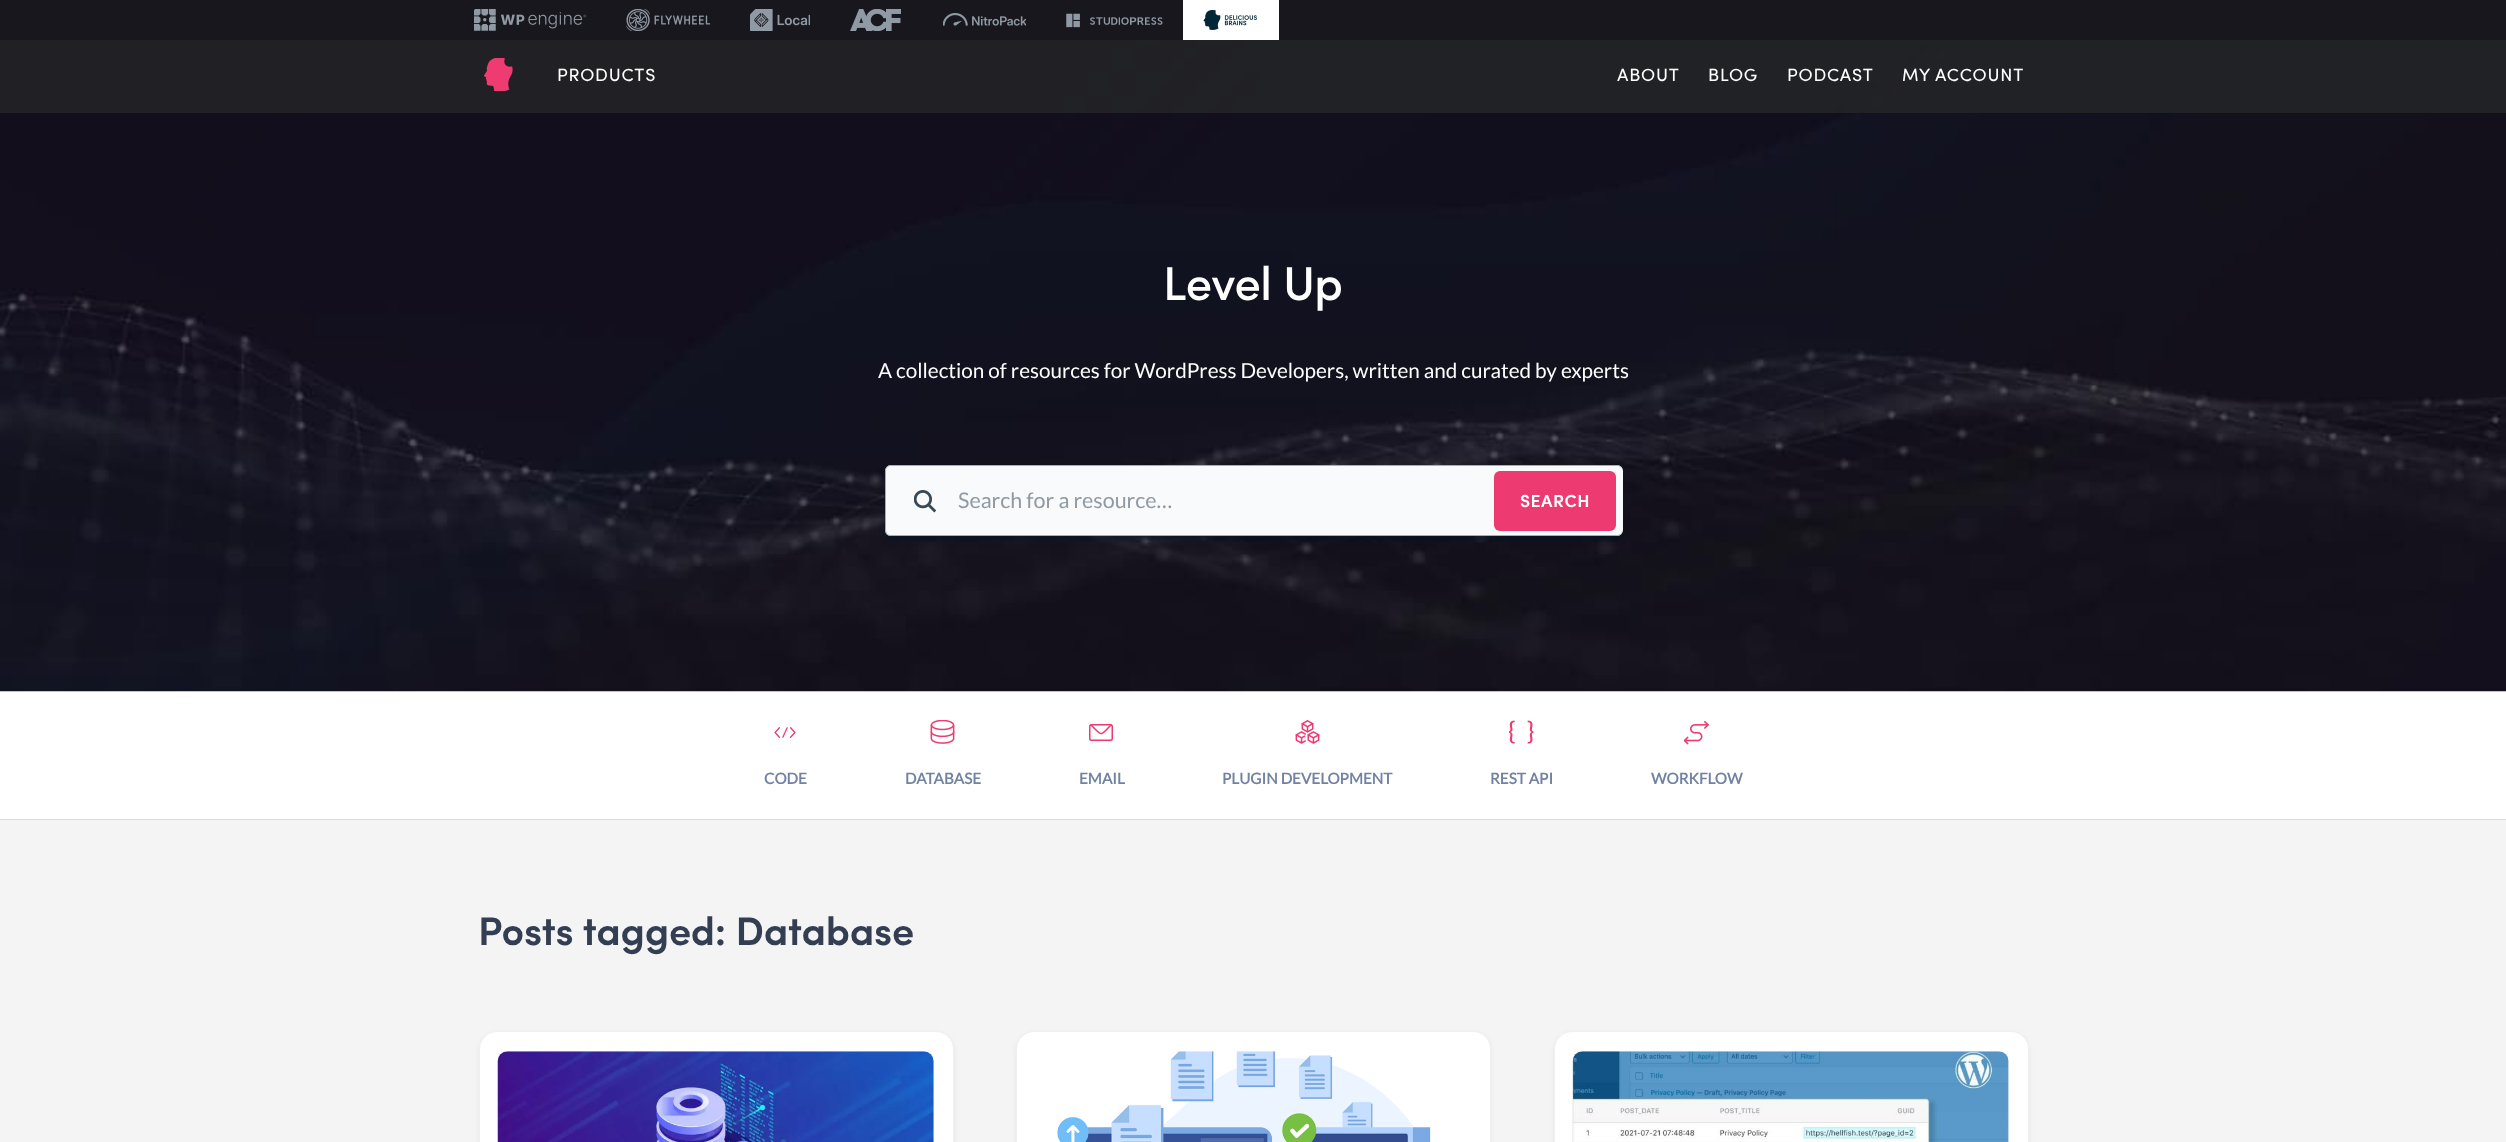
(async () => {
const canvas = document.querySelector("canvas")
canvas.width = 2506
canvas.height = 1142
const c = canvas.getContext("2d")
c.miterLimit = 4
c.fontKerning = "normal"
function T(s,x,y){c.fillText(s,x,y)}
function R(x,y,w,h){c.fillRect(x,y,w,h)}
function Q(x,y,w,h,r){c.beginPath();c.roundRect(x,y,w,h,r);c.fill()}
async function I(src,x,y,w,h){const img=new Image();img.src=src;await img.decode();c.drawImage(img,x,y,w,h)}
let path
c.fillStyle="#fff"
R(0,0,2506,1142)
c.fillStyle="#18171d"
R(0,0,2506,40)
await I("1.png",474,9,112,22)
await I("2.png",626,9,84,22)
await I("3.png",750,9,60,22)
await I("4.png",850,9,51,22)
await I("5.png",943,13,83,13)
await I("6.png",1066,13,97,15)
c.fillStyle="#fff"
R(1183,0,96,40)
await I("7.png",1203,10,54,20)
await I("9.png",0,40,2506,652)
c.fillStyle="#252728cc"
R(0,40,2506,73)
await I("8.png",484,58,29,33)
c.letterSpacing="0.75px"
c.font="17.75px Sofia"
c.fillStyle="#fff"
T("PRODUCTS",557,81)
T("ABOUT",1617,81)
T("BLOG",1708,81)
T("PODCAST",1787,81)
T("MY ACCOUNT",1902,81)
c.letterSpacing="-0.5px"
c.font="500 47.5px Sofia"
T("Level Up",1163,300)
c.letterSpacing="0px"
c.font="20.7px Lato"
T("A collection of resources for WordPress Developers, written and curated by experts",878,378)
c.fillStyle="#00142480"
c.filter="blur(2.5px)"
c.beginPath()
c.roundRect(885,469,738,71,6)
c.fill()
c.filter="none"
c.fillStyle="#f8fafc"
Q(885,465,738,71,6)
c.fillStyle="#adacad"
path = new Path2D("M891 465h726c3 0 5 3 5 6v59c0 4-2 6-5 6h-726c-3 0-6-2-6-6v-59c0-3 3-6 6-6zm0 1h726c3 0 5 2 5 5v59c0 3-2 5-5 5h-726c-3 0-5-2-5-5v-59c0-3 2-5 5-5z")
c.fill(path,"evenodd")
await I("10.png",914,490,22,23)
c.font="21.5px Lato"
c.fillStyle="#909aa3"
T("Search for a resource…",958,508)
c.fillStyle="#ed3a71"
Q(1494,471,122,60,6)
c.letterSpacing="0.5px"
c.font="600 17.5px Sofia"
c.fillStyle="#fff"
T("SEARCH",1520,507)
c.fillStyle="#dcd9d9"
R(0,819,2506,1)
await I("11.png",774,727,22,11)
c.letterSpacing="0px"
c.font="bold 15.25px Lato"
c.fillStyle="#7182a3"
T("CODE",764,784)
await I("12.png",930,720,25,24)
T("DATABASE",905,784)
c.beginPath()
c.roundRect(1089.75,724.75,22.5,15.5,1.75)
c.strokeStyle="#ed3a71"
c.lineWidth=1.5
c.stroke()
path = new Path2D("M1111 725c-11.5 11.5-8 11.5-20 0")
c.lineWidth=1.6
c.lineCap="round"
c.lineJoin="round"
c.stroke(path)
T("EMAIL",1079,784)
await I("13.png",1295,720,25,24)
T("PLUGIN DEVELOPMENT",1222,784)
await I("14.png",1509,720,25,24)
T("REST API",1490,784)
await I("15.png",1684,721,25,24)
T("WORKFLOW",1651,784)
c.fillStyle="#f4f4f4"
R(0,820,2506,322)
c.letterSpacing="-0.25px"
c.font="600 40px Sofia"
c.fillStyle="#333e53"
T("Posts tagged: Database",478,945)
c.fillStyle="#0000000d"
c.filter="blur(2.5px)"
c.beginPath()
c.roundRect(479,1033,475,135,18)
c.fill()
c.filter="none"
c.fillStyle="#fff"
c.beginPath()
c.roundRect(479.5,1031.5,474,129,17.5)
c.fill()
c.strokeStyle="#eff0f0"
c.lineWidth=1
c.lineJoin="miter"
c.stroke()
await I("16.png",497,1051,437,91)
c.fillStyle="#0000000d"
c.filter="blur(2.5px)"
c.beginPath()
c.roundRect(1016,1033,475,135,18)
c.fill()
c.filter="none"
c.fillStyle="#fff"
c.beginPath()
c.roundRect(1016.5,1031.5,474,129,17.5)
c.fill()
c.stroke()
await I("17.png",1057,1051,374,91)
c.fillStyle="#0000000d"
c.filter="blur(2.5px)"
c.beginPath()
c.roundRect(1554,1033,475,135,18)
c.fill()
c.filter="none"
c.fillStyle="#fff"
c.beginPath()
c.roundRect(1554.5,1031.5,474,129,17.5)
c.fill()
c.stroke()
await I("18.png",1572,1051,437,91)
})()
